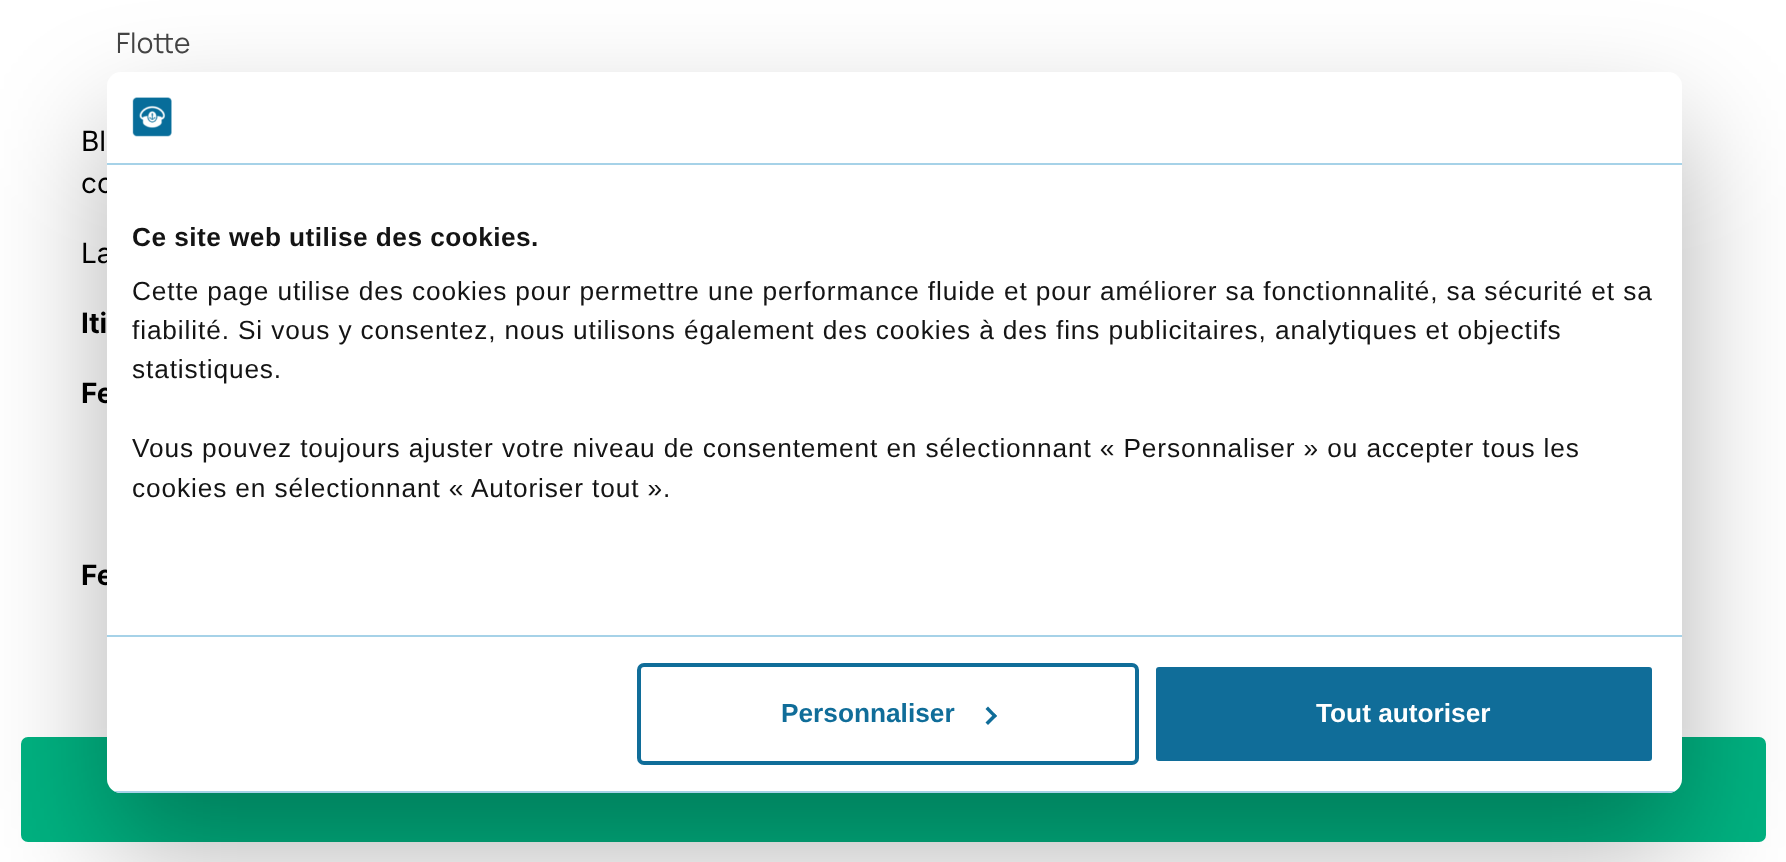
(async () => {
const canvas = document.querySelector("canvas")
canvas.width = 1786
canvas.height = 862
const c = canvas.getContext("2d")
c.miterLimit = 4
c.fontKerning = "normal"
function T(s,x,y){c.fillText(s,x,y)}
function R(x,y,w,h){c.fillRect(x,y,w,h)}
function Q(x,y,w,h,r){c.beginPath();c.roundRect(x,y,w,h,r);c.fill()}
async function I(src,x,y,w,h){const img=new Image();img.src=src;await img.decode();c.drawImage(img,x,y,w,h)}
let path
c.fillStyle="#fff"
R(0,0,1786,862)
c.font="28px Manrope"
c.fillStyle="#454545"
T("Flotte",116,53)
c.font="28px Inter"
c.fillStyle="#000"
T("Bl",81,151)
T("co",81,193)
T("La",81,263)
c.font="bold 28px Inter"
T("Iti",81,333)
T("Fe",81,403)
T("Fe",81,585)
c.fillStyle="#00b281"
c.beginPath()
c.roundRect(23,739,1741,101,5)
c.fill()
c.strokeStyle="#00b281"
c.lineWidth=4
c.stroke()
c.fillStyle="#0000004d"
c.filter="blur(59.5px)"
c.beginPath()
c.roundRect(107,128,1575,721,14)
c.fill()
c.filter="none"
c.fillStyle="#fff"
Q(107,72,1575,721,14)
c.fillStyle="#a6d2e8"
R(107,163,1575,2)
await I("1.png",132,97,40,40)
R(107,635,1575,2)
c.letterSpacing="0.45px"
c.font="bold 26.25px Liberation Sans"
c.fillStyle="#141414"
T("Ce site web utilise des cookies.",132,246)
c.letterSpacing="0.88px"
c.font="26.25px Liberation Sans"
T("Cette page utilise des cookies pour permettre une performance fluide et pour améliorer sa fonctionnalité, sa sécurité et sa",132,300)
T("fiabilité. Si vous y consentez, nous utilisons également des cookies à des fins publicitaires, analytiques et objectifs",132,339)
T("statistiques.",132,378)
T("Vous pouvez toujours ajuster votre niveau de consentement en sélectionnant « Personnaliser » ou accepter tous les",132,457)
T("cookies en sélectionnant « Autoriser tout ».",132,497)
c.save()
c.beginPath()
c.roundRect(107,72,1575,721,14)
c.clip()
c.fillStyle="#a6d2e8"
R(107,791,1575,2)
c.restore()
c.beginPath()
c.roundRect(639,665,498,98,5)
c.strokeStyle="#106d99"
c.stroke()
c.letterSpacing="0px"
c.font="bold 26.25px Liberation Sans"
c.fillStyle="#106d99"
T("Personnaliser",781,722)
path = new Path2D("M988 706.5l9 9.5l-2.5 2l-9-9z")
c.fill(path)
path = new Path2D("M994.5 713.5l2.5 2.5l-9 9l-2.5-2.5z")
c.fill(path)
c.beginPath()
c.roundRect(1154,665,500,98,5)
c.fill()
c.strokeStyle="#fff"
c.stroke()
c.fillStyle="#fff"
T("Tout autoriser",1316,722)
})()
